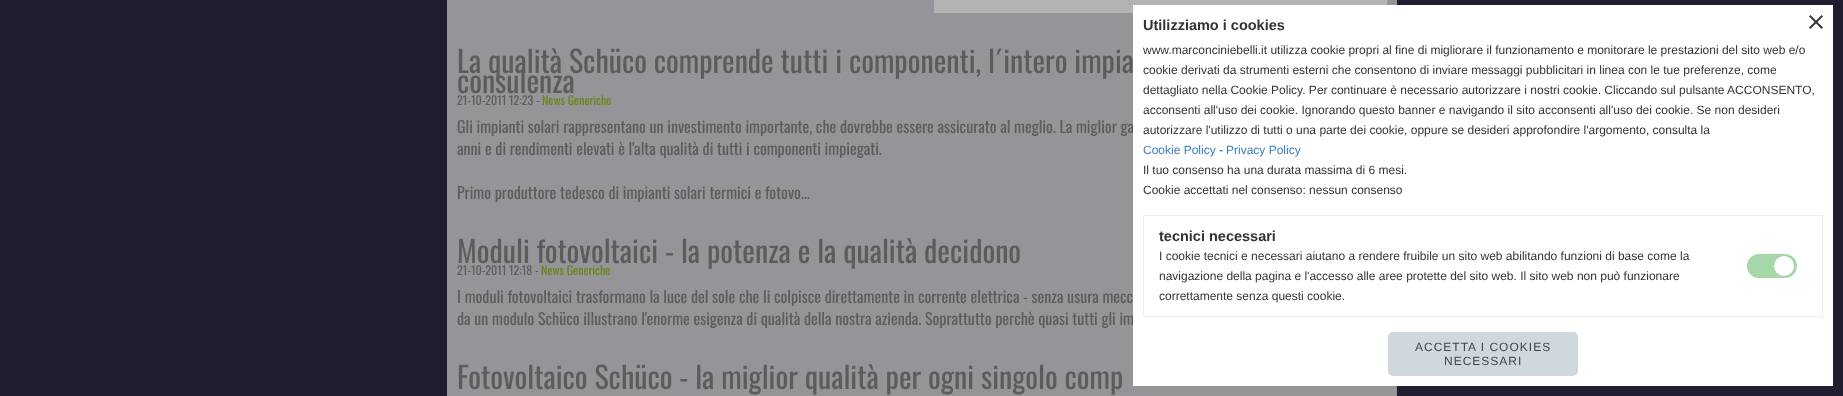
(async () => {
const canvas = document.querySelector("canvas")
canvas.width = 1843
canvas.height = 396
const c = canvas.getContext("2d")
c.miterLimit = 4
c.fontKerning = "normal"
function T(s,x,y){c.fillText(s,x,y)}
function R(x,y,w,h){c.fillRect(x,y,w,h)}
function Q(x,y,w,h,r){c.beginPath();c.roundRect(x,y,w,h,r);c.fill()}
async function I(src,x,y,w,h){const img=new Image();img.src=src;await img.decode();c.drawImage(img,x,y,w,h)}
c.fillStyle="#201d2f"
R(0,0,1843,396)
c.fillStyle="#959498"
R(447,0,950,396)
c.fillStyle="#b3b3b3"
R(934,0,453,13)
c.font="30px Oswald"
c.fillStyle="#5c5c5c"
T("La qualità Schüco comprende tutti i componenti, l´intero impia",457,73)
T("consulenza",457,93)
c.font="12px Oswald"
T("21-10-2011 12:23 -",457,105)
c.fillStyle="#688715"
T("News Generiche",542,105)
c.font="16px Oswald"
c.fillStyle="#5c5c5c"
T("Gli impianti solari rappresentano un investimento importante, che dovrebbe essere assicurato al meglio. La miglior ga",457,133)
T("anni e di rendimenti elevati è l'alta qualità di tutti i componenti impiegati.",457,155)
T("Primo produttore tedesco di impianti solari termici e fotovo...",457,199)
c.font="30px Oswald"
T("Moduli fotovoltaici - la potenza e la qualità decidono",457,263)
c.font="12px Oswald"
T("21-10-2011 12:18 -",457,275)
c.fillStyle="#688715"
T("News Generiche",541,275)
c.font="16px Oswald"
c.fillStyle="#5c5c5c"
T("I moduli fotovoltaici trasformano la luce del sole che li colpisce direttamente in corrente elettrica - senza usura mecc",457,303)
T("da un modulo Schüco illustrano l'enorme esigenza di qualità della nostra azienda. Soprattutto perchè quasi tutti gli im",457,325)
c.font="30px Oswald"
T("Fotovoltaico Schüco - la miglior qualità per ogni singolo comp",457,389)
c.fillStyle="#fff"
R(1133,5,700,381)
c.font="bold 14.5px Liberation Sans"
c.fillStyle="#333"
T("Utilizziamo i cookies",1143,30)
c.font="12px Liberation Sans"
T("www.marconciniebelli.it utilizza cookie propri al fine di migliorare il funzionamento e monitorare le prestazioni del sito web e/o",1143,54)
T("cookie derivati da strumenti esterni che consentono di inviare messaggi pubblicitari in linea con le tue preferenze, come",1143,74)
T("dettagliato nella Cookie Policy. Per continuare è necessario autorizzare i nostri cookie. Cliccando sul pulsante ACCONSENTO,",1143,94)
T("acconsenti all'uso dei cookie. Ignorando questo banner e navigando il sito acconsenti all'uso dei cookie. Se non desideri",1143,114)
T("autorizzare l'utilizzo di tutti o una parte dei cookie, oppure se desideri approfondire l'argomento, consulta la",1143,134)
c.fillStyle="#3a7dbd"
T("Cookie Policy",1143,154)
c.fillStyle="#333"
T("-",1219,154)
c.fillStyle="#3a7dbd"
T("Privacy Policy",1226,154)
c.fillStyle="#333"
T("Il tuo consenso ha una durata massima di 6 mesi.",1143,174)
T("Cookie accettati nel consenso: nessun consenso",1143,194)
c.strokeStyle="#eee"
c.strokeRect(1143.5,215.5,679,101)
c.font="bold 14.5px Liberation Sans"
T("tecnici necessari",1159,241)
c.font="12px Liberation Sans"
T("I cookie tecnici e necessari aiutano a rendere fruibile un sito web abilitando funzioni di base come la",1159,260)
T("navigazione della pagina e l'accesso alle aree protette del sito web. Il sito web non può funzionare",1159,280)
T("correttamente senza questi cookie.",1159,300)
c.fillStyle="#a6d7a8"
Q(1747,254,50,24,12)
c.fillStyle="#fff"
c.beginPath()
c.arc(1784,266,10,0,7)
c.fill()
c.fillStyle="#cfd8dc"
Q(1388,332,190,44,5)
c.letterSpacing="1px"
c.fillStyle="#444"
T("ACCETTA I COOKIES",1415,351)
T("NECESSARI",1444,365)
await I("1.png",1809,15,14,14)
})()
